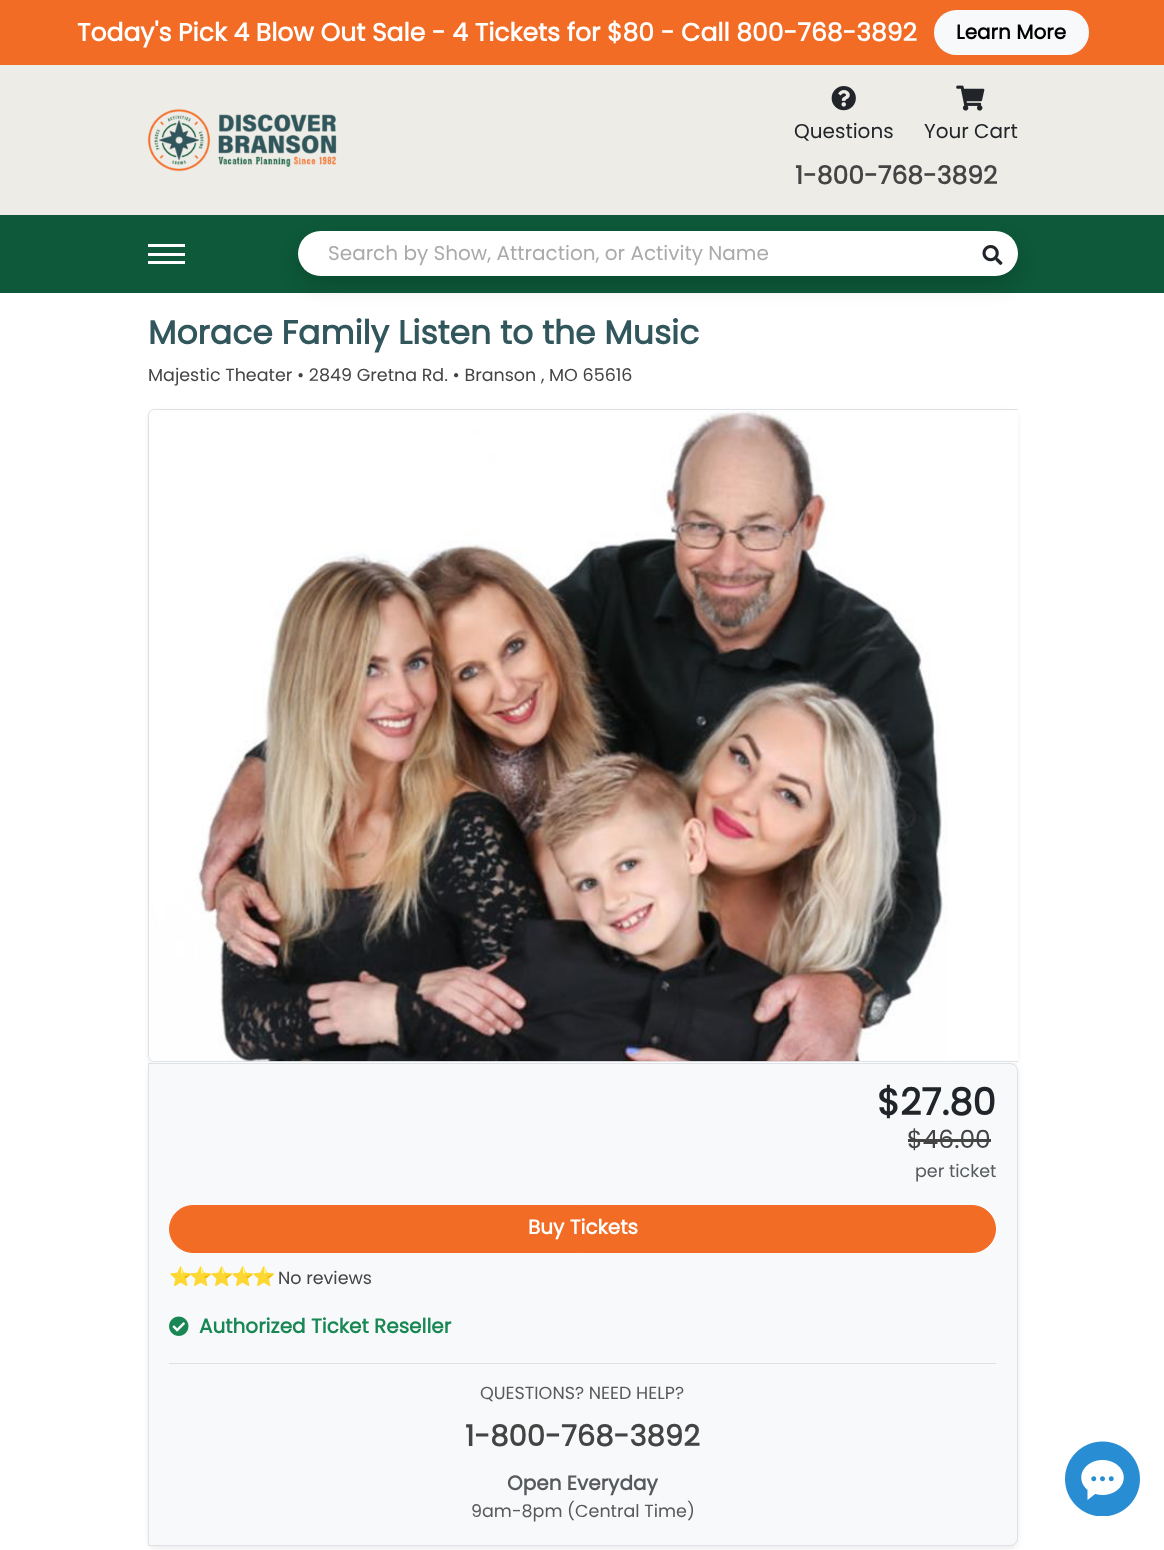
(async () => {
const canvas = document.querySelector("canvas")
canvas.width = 1164
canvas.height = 1550
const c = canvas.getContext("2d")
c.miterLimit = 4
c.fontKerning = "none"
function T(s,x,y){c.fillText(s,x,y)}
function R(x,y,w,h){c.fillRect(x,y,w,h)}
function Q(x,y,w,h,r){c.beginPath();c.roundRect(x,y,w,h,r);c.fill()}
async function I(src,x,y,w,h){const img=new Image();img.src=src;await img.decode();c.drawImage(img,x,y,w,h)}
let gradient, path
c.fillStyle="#fff"
R(0,0,1164,1550)
c.fillStyle="#f26c26"
R(0,0,1164,65)
c.font="bold 25px Poppins"
c.fillStyle="#fff"
T("Today's Pick 4 Blow Out Sale - 4 Tickets for $80 - Call 800-768-3892",77,41)
c.fillStyle="#f8f9fa"
c.beginPath()
c.roundRect(935.5,11.5,152,42,21)
c.fill()
c.strokeStyle="#f8f9fa"
c.lineWidth=3
c.stroke()
c.font="bold 20px Poppins"
c.fillStyle="#000"
T("Learn More",956,39)
c.fillStyle="#edece6"
R(0,65,1164,150)
await I("1.png",147,108,190,64)
await I("2.png",831,86,25,25)
c.font="20px Poppins"
c.fillStyle="#212529"
T("Questions",794,138)
await I("3.png",956,85,29,26)
T("Your Cart",924,138)
c.font="bold 25px Poppins"
c.fillStyle="#444"
T("1-800-768-3892",795,184)
c.fillStyle="#0d5939"
R(0,215,1164,78)
c.fillStyle="#fff"
R(148,244,37,3)
R(148,253,37,3)
R(148,261,37,3)
c.fillStyle="#00000026"
c.filter="blur(10px)"
c.beginPath()
c.roundRect(298,241,720,45,22.5)
c.fill()
c.filter="none"
c.fillStyle="#fff"
Q(298,231,720,45,22.5)
c.font="20px Poppins"
c.fillStyle="#aaa"
T("Search by Show, Attraction, or Activity Name",328,260)
await I("4.png",982,245,21,20)
c.font="bold 33px Poppins"
c.fillStyle="#31565b"
T("Morace Family Listen to the Music",148,344)
c.font="17.5px Poppins"
c.fillStyle="#444"
T("Majestic Theater • 2849 Gretna Rd. • Branson , MO 65616",148,381)
c.save()
path = new Path2D("M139 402h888v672h-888zm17 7h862v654h-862c-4.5 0-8-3.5-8-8v-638c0-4.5 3.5-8 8-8z")
c.clip(path,"evenodd")
c.fillStyle="#00000012"
c.filter="blur(2.5px)"
c.beginPath()
c.roundRect(148,411,870,654,8)
c.fill()
c.filter="none"
c.restore()
c.fillStyle="#dee2e6"
path = new Path2D("M155 409h863v653h-863c-4 0-7-3-7-7v-639c0-4 3-7 7-7zm0 1h863v651h-863c-3 0-6-3-6-6v-639c0-3 3-6 6-6z")
c.fill(path,"evenodd")
await I("5.png",149,410,799,652)
c.fillStyle="#00000012"
c.filter="blur(2.5px)"
c.beginPath()
c.roundRect(148,1065,870,484,8)
c.fill()
c.filter="none"
c.fillStyle="#f8f9fa"
c.beginPath()
c.roundRect(148.5,1063.5,869,482,[0,7.5,7.5,0])
c.fill()
c.strokeStyle="#dee2e6"
c.lineWidth=1
c.stroke()
c.font="bold 37px Poppins"
c.fillStyle="#212529"
T("$27.80",877,1115)
c.font="25px Poppins"
c.fillStyle="#444"
T("$46.00",907,1148)
R(908,1139,83,3)
c.font="17.5px Poppins"
c.fillStyle="#575a5d"
T("per ticket",915,1177)
c.fillStyle="#f26c26"
c.beginPath()
c.roundRect(169.5,1205.5,826,47,23.5)
c.fill()
c.strokeStyle="#f26c26"
c.stroke()
c.font="bold 20px Poppins"
c.fillStyle="#fff"
T("Buy Tickets",528,1234)
c.letterSpacing="-2.5px"
c.font="18.75px Noto Color Emoji"
gradient = c.createLinearGradient(169,1277,273,1277)
gradient.addColorStop(0,"#ffca2c")
gradient.addColorStop(0,"#ccc")
c.fillStyle = gradient
T("⭐⭐⭐⭐⭐",169,1283)
c.letterSpacing="0px"
c.font="17.5px Poppins"
c.fillStyle="#444"
T("No reviews",278,1284)
await I("6.png",169,1316,20,20)
c.font="bold 20px Poppins"
c.fillStyle="#198754"
T("Authorized Ticket Reseller",199,1333)
c.fillStyle="#dee2e6"
R(169,1363,827,1)
c.font="17.5px Poppins"
c.fillStyle="#575a5d"
T("QUESTIONS? NEED HELP?",480,1399)
c.font="bold 29px Poppins"
c.fillStyle="#444"
T("1-800-768-3892",465,1446)
c.font="bold 20px Poppins"
c.fillStyle="#575a5d"
T("Open Everyday",507,1490)
c.font="17.5px Poppins"
T("9am-8pm (Central Time)",471,1517)
await I("7.png",1065,1441,75,75)
})()
